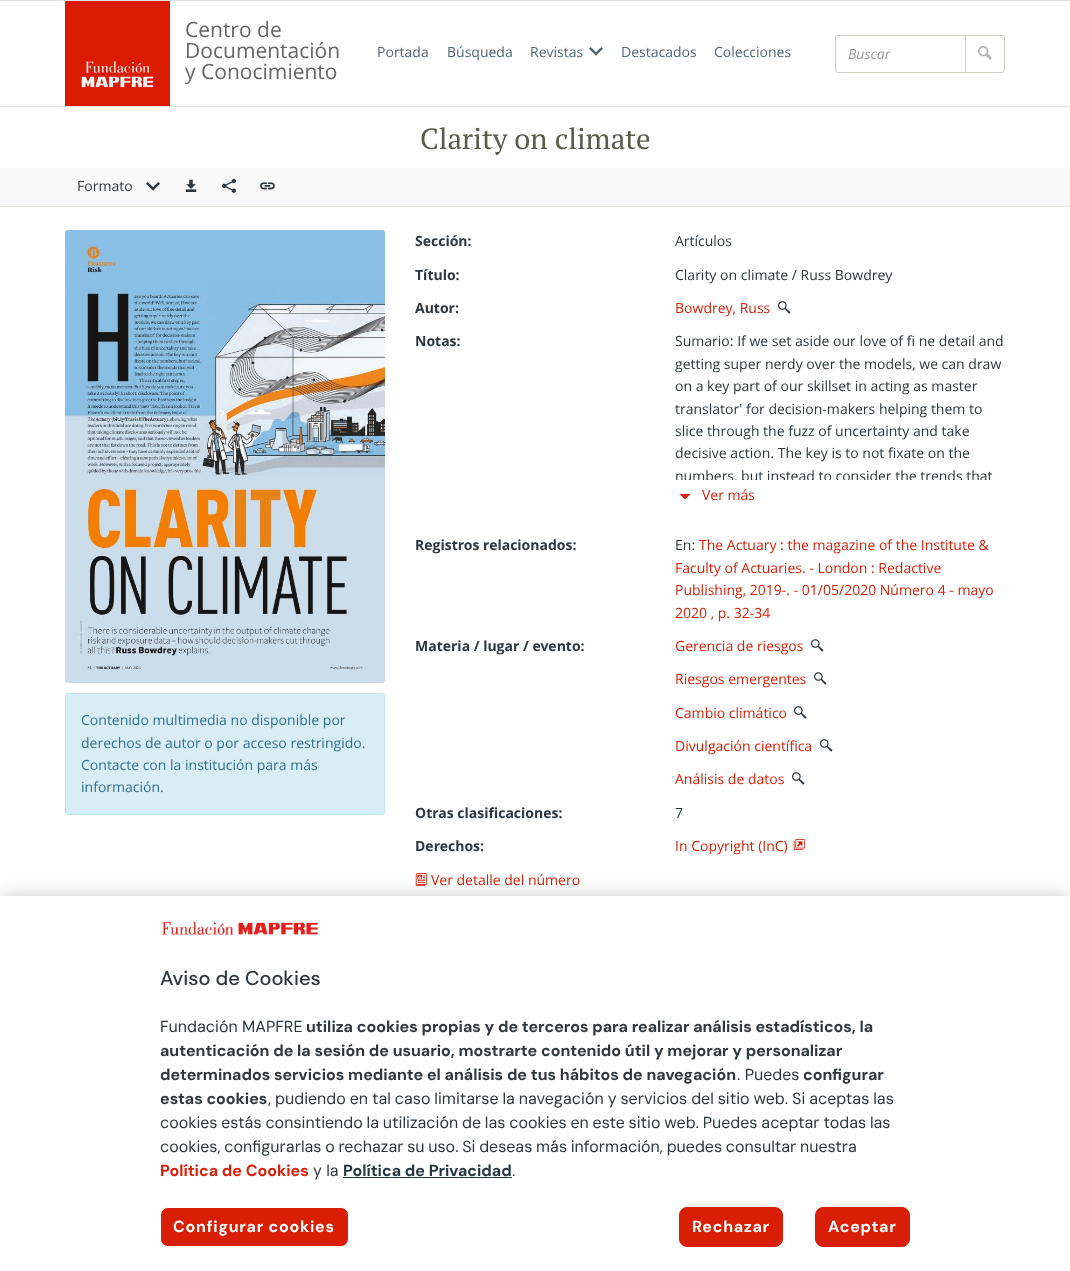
(async () => {
const canvas = document.querySelector("canvas")
canvas.width = 1070
canvas.height = 1271
const c = canvas.getContext("2d")
c.miterLimit = 4
c.fontKerning = "normal"
function T(s,x,y){c.fillText(s,x,y)}
function R(x,y,w,h){c.fillRect(x,y,w,h)}
async function I(src,x,y,w,h){const img=new Image();img.src=src;await img.decode();c.drawImage(img,x,y,w,h)}
let path
c.fillStyle="#fff"
R(0,0,1070,1271)
c.fillStyle="#e4e3db"
R(0,0,1070,1)
R(0,106,1070,1)
await I("1.png",65,1,105,105)
c.font="21px Open Sans"
c.fillStyle="#666"
T("Centro de",185,37)
T("Documentación",185,58)
T("y Conocimiento",185,79)
c.font="14px Open Sans"
c.fillStyle="#526570"
T("Portada",377,57)
T("Búsqueda",447,57)
T("Revistas",530,57)
await I("2.png",589,47,14,9)
T("Destacados",621,57)
T("Colecciones",714,57)
c.beginPath()
c.roundRect(835.5,35.5,130,37,[2.5,0,0,2.5])
c.strokeStyle="#d1d0c7"
c.stroke()
c.font="italic 14px Open Sans"
c.fillStyle="#999"
T("Buscar",848,59)
c.fillStyle="#d1d0c7"
path = new Path2D("M966 35h36c1.5 0 3 1.5 3 3v32c0 1.5-1.5 3-3 3h-36zm0 1h36c1 0 2 1 2 2v32c0 1-1 2-2 2h-36z")
c.fill(path,"evenodd")
await I("3.png",978,45,14,15)
c.font="29px PT Serif"
c.fillStyle="#5c5a4e"
T("Clarity on climate",420,149)
c.fillStyle="#f9f9f9"
R(0,168,1070,38)
c.fillStyle="#e4e3db"
R(0,206,1070,1)
c.font="14px Open Sans"
c.fillStyle="#2d373d"
T("Formato",77,191)
await I("4.png",146,182,14,9)
await I("5.png",185,179,12,13)
await I("6.png",222,178,14,15)
await I("7.png",260,182,15,8)
await I("8.png",65,230,320,453)
c.fillStyle="#d9edf7"
c.beginPath()
c.roundRect(65.5,693.5,319,121,2.5)
c.fill()
c.strokeStyle="#bce8f1"
c.stroke()
c.fillStyle="#31708f"
T("Contenido multimedia no disponible por",81,725)
T("derechos de autor o por acceso restringido.",81,748)
T("Contacte con la institución para más",81,770)
T("información.",81,792)
c.font="bold 14px Open Sans"
c.fillStyle="#2d373d"
T("Sección:",415,246)
c.font="14px Open Sans"
T("Artículos",675,246)
c.font="bold 14px Open Sans"
T("Título:",415,280)
c.font="14px Open Sans"
T("Clarity on climate / Russ Bowdrey",675,280)
c.font="bold 14px Open Sans"
T("Autor:",415,313)
c.font="14px Open Sans"
c.fillStyle="#d81e05"
T("Bowdrey, Russ",675,313)
await I("9.png",778,301,13,13)
c.font="bold 14px Open Sans"
c.fillStyle="#2d373d"
T("Notas:",415,346)
c.font="14px Open Sans"
T("Sumario: If we set aside our love of fi ne detail and",675,346)
T("getting super nerdy over the models, we can draw",675,369)
T("on a key part of our skillset in acting as master",675,391)
T("translator' for decision-makers helping them to",675,414)
T("slice through the fuzz of uncertainty and take",675,436)
T("decisive action. The key is to not fixate on the",675,458)
c.save()
c.beginPath()
c.rect(675,330,330,150)
c.clip()
T("numbers, but instead to consider the trends that",675,481)
c.restore()
c.fillStyle="#d81e05"
path = new Path2D("M679.5 494l5.5 5.5l5.5-5.5z")
c.fill(path)
T("Ver más",702,500)
c.font="bold 14px Open Sans"
c.fillStyle="#2d373d"
T("Registros relacionados:",415,550)
c.font="14px Open Sans"
T("En:",675,550)
c.fillStyle="#d81e05"
T("The Actuary : the magazine of the Institute &",699,550)
T("Faculty of Actuaries. - London : Redactive",675,573)
T("Publishing, 2019-. - 01/05/2020 Número 4 - mayo",675,595)
T("2020 , p. 32-34",675,618)
c.font="bold 14px Open Sans"
c.fillStyle="#2d373d"
T("Materia / lugar / evento:",415,651)
c.font="14px Open Sans"
c.fillStyle="#d81e05"
T("Gerencia de riesgos",675,651)
await I("9.png",811,639,13,13)
T("Riesgos emergentes",675,684)
await I("9.png",814,672,13,13)
T("Cambio climático",675,718)
await I("9.png",794,706,13,13)
T("Divulgación científica",675,751)
await I("9.png",820,739,13,13)
T("Análisis de datos",675,784)
await I("9.png",792,772,13,13)
c.font="bold 14px Open Sans"
c.fillStyle="#2d373d"
T("Otras clasificaciones:",415,818)
c.font="14px Open Sans"
T("7",675,818)
c.font="bold 14px Open Sans"
T("Derechos:",415,851)
c.font="14px Open Sans"
c.fillStyle="#d81e05"
T("In Copyright (InC)",675,851)
await I("10.png",793,839,12,11)
await I("11.png",415,873,12,13)
T("Ver detalle del número",431,885)
c.fillStyle="#00000033"
c.filter="blur(9px)"
c.beginPath()
c.rect(0,896,1070,375)
c.fill()
c.filter="none"
c.fillStyle="#fff"
R(0,896,1070,375)
await I("12.png",161,921,157,14)
c.font="500 20px DM Sans"
c.fillStyle="#2d373d"
T("Aviso de Cookies",160,985)
c.font="16px DM Sans"
T("Fundación MAPFRE",160,1032)
c.font="bold 16px DM Sans"
T("utiliza cookies propias y de terceros para realizar análisis estadísticos, la",306,1032)
T("autenticación de la sesión de usuario, mostrarte contenido útil y mejorar y personalizar",160,1056)
T("determinados servicios mediante el análisis de tus hábitos de navegación",160,1080)
c.font="16px DM Sans"
T(". Puedes",737,1080)
c.font="bold 16px DM Sans"
T("configurar",803,1080)
T("estas cookies",160,1104)
c.wordSpacing="-0.4px"
c.font="16px DM Sans"
T(", pudiendo en tal caso limitarse la navegación y servicios del sitio web. Si aceptas las",268,1104)
c.wordSpacing="-0.5px"
T("cookies estás consintiendo la utilización de las cookies en este sitio web. Puedes aceptar todas las",160,1128)
c.wordSpacing="-0.6px"
T("cookies, configurarlas o rechazar su uso. Si deseas más información, puedes consultar nuestra",160,1152)
c.wordSpacing="0px"
c.font="bold 16px DM Sans"
c.fillStyle="#d81e05"
T("Política de Cookies",160,1176)
c.font="16px DM Sans"
c.fillStyle="#2d373d"
T("y la",313,1176)
c.font="bold 16px DM Sans"
c.fillStyle="#233742"
T("Política de Privacidad",343,1176)
R(343,1177,169,1)
c.font="16px DM Sans"
c.fillStyle="#2d373d"
T(".",512,1176)
c.fillStyle="#d81e05"
c.beginPath()
c.roundRect(160.5,1207.5,188,39,7.5)
c.fill()
c.strokeStyle="#fff"
c.stroke()
c.letterSpacing="0.75px"
c.font="bold 16px DM Sans"
c.fillStyle="#fff"
T("Configurar cookies",173,1232)
c.fillStyle="#d81e05"
c.beginPath()
c.roundRect(679.5,1207.5,103,39,7.5)
c.fill()
c.strokeStyle="#d81e05"
c.stroke()
c.fillStyle="#fff"
T("Rechazar",692,1232)
c.fillStyle="#d81e05"
c.beginPath()
c.roundRect(815.5,1207.5,94,39,7.5)
c.fill()
c.stroke()
c.fillStyle="#fff"
T("Aceptar",828,1232)
})()
